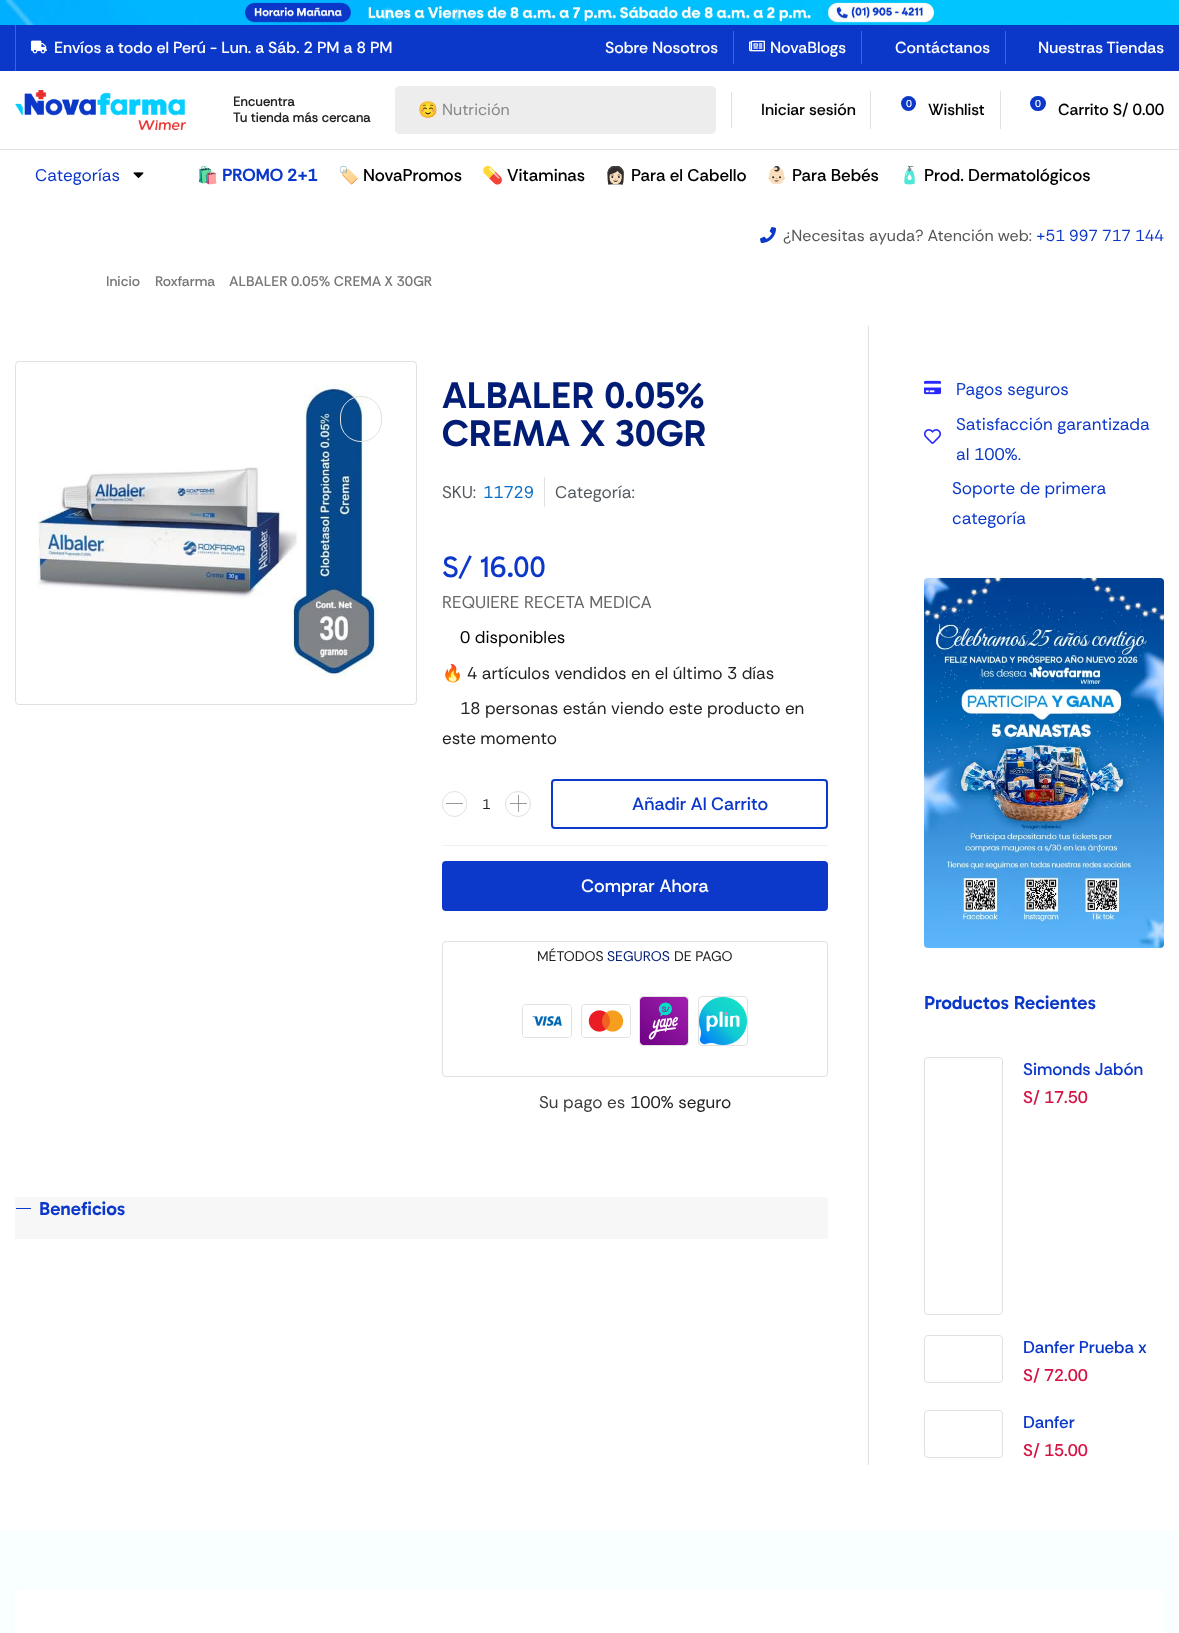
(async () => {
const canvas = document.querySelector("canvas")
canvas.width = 1179
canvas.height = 1633
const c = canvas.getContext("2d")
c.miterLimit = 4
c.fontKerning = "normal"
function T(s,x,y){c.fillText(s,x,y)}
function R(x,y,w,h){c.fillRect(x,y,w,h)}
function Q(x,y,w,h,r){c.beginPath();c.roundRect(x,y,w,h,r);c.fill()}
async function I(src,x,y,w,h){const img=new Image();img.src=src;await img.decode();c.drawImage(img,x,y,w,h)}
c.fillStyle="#fff"
R(0,0,1179,1633)
await I("1.png",0,0,1179,25)
c.fillStyle="#0c38c9"
R(0,25,1179,46)
c.fillStyle="#3f62d4"
R(15,25,1,46)
await I("2.png",31,40,16,14)
c.font="100 16px Rethink Sans"
c.fillStyle="#fff"
T("Envíos a todo el Perú - Lun. a Sáb. 2 PM a 8 PM",54,53)
c.fillStyle="#3f62d4"
R(733,31,1,33)
c.fillStyle="#fff"
T("Sobre Nosotros",605,53)
c.fillStyle="#3f62d4"
R(861,31,1,33)
await I("3.png",749,40,16,12)
c.fillStyle="#fff"
T("NovaBlogs",770,53)
c.fillStyle="#3f62d4"
R(1005,31,1,33)
c.fillStyle="#fff"
T("Contáctanos",895,53)
T("Nuestras Tiendas",1038,53)
c.fillStyle="#e1e1e1"
R(0,149,1179,1)
await I("4.png",15,90,171,40)
c.font="bold 13px Rethink Sans"
c.fillStyle="#222"
T("Encuentra",233,106)
T("Tu tienda más cercana",233,122)
c.beginPath()
c.roundRect(395.5,86.5,320,47,3.5)
c.strokeStyle="#ededed"
c.stroke()
c.fillStyle="#ededed"
c.beginPath()
c.roundRect(396,87,279,46,[3,0,0,3])
c.fill()
c.font="16px Noto Color Emoji"
c.fillStyle="#888"
T("☺️",418,115)
c.font="100 16px 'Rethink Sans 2'"
T("Nutrición",442,115)
c.fillStyle="#ededed"
c.beginPath()
c.roundRect(675,87,40,46,[0,3,3,0])
c.fill()
c.fillStyle="#e1e1e1"
R(731,92,1,36)
c.font="100 16px Rethink Sans"
c.fillStyle="#000"
T("Iniciar sesión",761,115)
c.fillStyle="#e1e1e1"
R(870,91,1,38)
c.fillStyle="#0b38c9"
c.beginPath()
c.arc(908.5,103.5,7.5,0,7)
c.fill()
c.font="100 10px Rethink Sans"
c.fillStyle="#fff"
T("0",906,107)
c.font="100 16px Rethink Sans"
c.fillStyle="#000"
T("Wishlist",928,115)
c.fillStyle="#e1e1e1"
R(1000,91,1,38)
c.fillStyle="#0b38c9"
Q(1030,96,16,15,7.5)
c.font="100 10px Rethink Sans"
c.fillStyle="#fff"
T("0",1035,107)
c.font="100 16px Rethink Sans"
c.fillStyle="#000"
T("Carrito S/ 0.00",1058,115)
c.font="100 17px 'Rethink Sans 2'"
c.fillStyle="#0b38c9"
T("Categorías",35,181)
await I("5.png",133,172,11,6)
c.font="17px Noto Color Emoji"
c.fillStyle="#000"
T("🛍️",197,181)
c.font="bold 17px 'Rethink Sans 2'"
c.fillStyle="#0b38c9"
T("PROMO 2+1",222,181)
c.font="17px Noto Color Emoji"
c.fillStyle="#000"
T("🏷️",338,181)
c.font="100 17px Rethink Sans"
T("NovaPromos",363,181)
c.font="17px Noto Color Emoji"
T("💊",482,181)
c.font="100 17px Rethink Sans"
T("Vitaminas",507,181)
c.font="17px Noto Color Emoji"
T("👩🏻",605,181)
c.font="100 17px Rethink Sans"
T("Para el Cabello",631,181)
c.font="17px Noto Color Emoji"
T("👶🏻",766,181)
c.font="100 17px Rethink Sans"
T("Para Bebés",792,181)
c.font="17px Noto Color Emoji"
T("🧴",899,181)
c.font="100 17px Rethink Sans"
T("Prod. Dermatológicos",924,181)
await I("6.png",760,227,16,16)
c.font="100 16px 'Rethink Sans 2'"
c.fillStyle="#555"
T("¿Necesitas ayuda? Atención web:",783,241)
c.fillStyle="#0b38c9"
T("+51 997 717 144",1036,241)
c.font="100 14px Rethink Sans"
c.fillStyle="#777"
T("Inicio",106,286)
T("Roxfarma",155,286)
T("ALBALER 0.05% CREMA X 30GR",229,286)
c.fillStyle="#e1e1e1"
R(868,326,1,1139)
c.beginPath()
c.roundRect(15.5,361.5,401,343,3.5)
c.strokeStyle="#e1e1e1"
c.stroke()
await I("7.png",37,383,342,298)
c.beginPath()
c.roundRect(340.5,396.5,41,45,20.5)
c.stroke()
c.font="600 38px Gabarito"
c.fillStyle="#001c75"
T("ALBALER 0.05%",442,408)
T("CREMA X 30GR",442,446)
c.fillStyle="#e1e1e1"
R(544,477,1,30)
c.font="100 17px 'Rethink Sans 2'"
c.fillStyle="#54595f"
T("SKU:",442,498)
c.fillStyle="#0b6dc4"
T("11729",483,498)
c.fillStyle="#54595f"
T("Categoría:",555,498)
c.font="30px Gabarito"
c.fillStyle="#0b38c9"
T("S/ 16.00",442,577)
c.font="100 17px 'Rethink Sans 2'"
c.fillStyle="#666"
T("REQUIERE RECETA MEDICA",442,608)
c.fillStyle="#000"
T("0 disponibles",460,643)
c.font="17px Noto Color Emoji"
c.fillStyle="#222"
T("🔥",442,679)
c.font="100 17px 'Rethink Sans 2'"
T("4 artículos vendidos en el último 3 días",467,679)
T("18 personas están viendo este producto en",460,714)
T("este momento",442,744)
c.beginPath()
c.roundRect(442.5,791.5,24,25,12)
c.stroke()
await I("8.png",446,803,17,1)
c.font="100 14px 'Rethink Sans 2'"
T("1",482,809)
c.beginPath()
c.arc(518,804,12.5,0,7)
c.stroke()
await I("9.png",510,795,17,17)
c.beginPath()
c.roundRect(552,780,275,48,3)
c.strokeStyle="#0c39c9"
c.lineWidth=2
c.stroke()
c.font="100 18px Rethink Sans"
c.fillStyle="#0b38c9"
T("Añadir Al Carrito",632,810)
c.fillStyle="#f0f0f0"
R(442,845,386,1)
c.fillStyle="#0c39c9"
c.beginPath()
c.roundRect(443,862,384,48,3)
c.fill()
c.stroke()
c.fillStyle="#fff"
T("Comprar Ahora",581,892)
c.beginPath()
c.roundRect(442.5,941.5,385,135,3.5)
c.strokeStyle="#e1e1e1"
c.lineWidth=1
c.stroke()
c.font="100 14px 'Rethink Sans 2'"
c.fillStyle="#222"
T("MÉTODOS",537,961)
c.fillStyle="#001c75"
T("SEGUROS",607,961)
c.fillStyle="#222"
T("DE PAGO",674,961)
c.beginPath()
c.roundRect(522.5,1004.5,49,33,3.5)
c.stroke()
await I("10.png",523,1005,48,32)
c.beginPath()
c.roundRect(581.5,1004.5,49,33,3.5)
c.stroke()
await I("11.png",582,1005,48,32)
c.beginPath()
c.roundRect(639.5,996.5,49,49,3.5)
c.stroke()
await I("12.png",640,997,48,48)
c.beginPath()
c.roundRect(698.5,996.5,49,49,3.5)
c.stroke()
await I("13.png",699,997,48,48)
c.font="100 17px 'Rethink Sans 2'"
c.fillStyle="#3d3d3d"
T("Su pago es",539,1108)
c.fillStyle="#222"
T("100% seguro",630,1108)
c.fillStyle="#f7f7f7"
R(15,1197,813,42)
c.fillStyle="#0c39c9"
R(16,1208,15,1)
c.font="600 19px Gabarito"
c.fillStyle="#0b38c9"
T("Beneficios",39,1215)
await I("14.png",924,380,17,15)
c.font="100 17px 'Rethink Sans 2'"
T("Pagos seguros",956,395)
await I("15.png",924,429,17,15)
T("Satisfacción garantizada",956,430)
T("al 100%.",956,460)
T("Soporte de primera",952,494)
T("categoría",952,524)
await I("16.png",924,578,240,370)
c.font="600 19px Gabarito"
T("Productos Recientes",924,1009)
c.beginPath()
c.roundRect(924.5,1057.5,78,257,3.5)
c.stroke()
c.font="100 17px Rethink Sans"
T("Simonds Jabón",1023,1075)
c.fillStyle="#d51243"
T("S/ 17.50",1023,1103)
c.beginPath()
c.roundRect(924.5,1335.5,78,47,3.5)
c.stroke()
c.fillStyle="#0b38c9"
T("Danfer Prueba x",1023,1353)
c.fillStyle="#d51243"
T("S/ 72.00",1023,1381)
c.beginPath()
c.roundRect(924.5,1410.5,78,47,3.5)
c.stroke()
c.fillStyle="#0b38c9"
T("Danfer",1023,1428)
c.fillStyle="#d51243"
T("S/ 15.00",1023,1456)
c.fillStyle="#f9ffff"
R(0,1530,1179,103)
c.fillStyle="#fff"
Q(15,1590,1149,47,4)
})()
